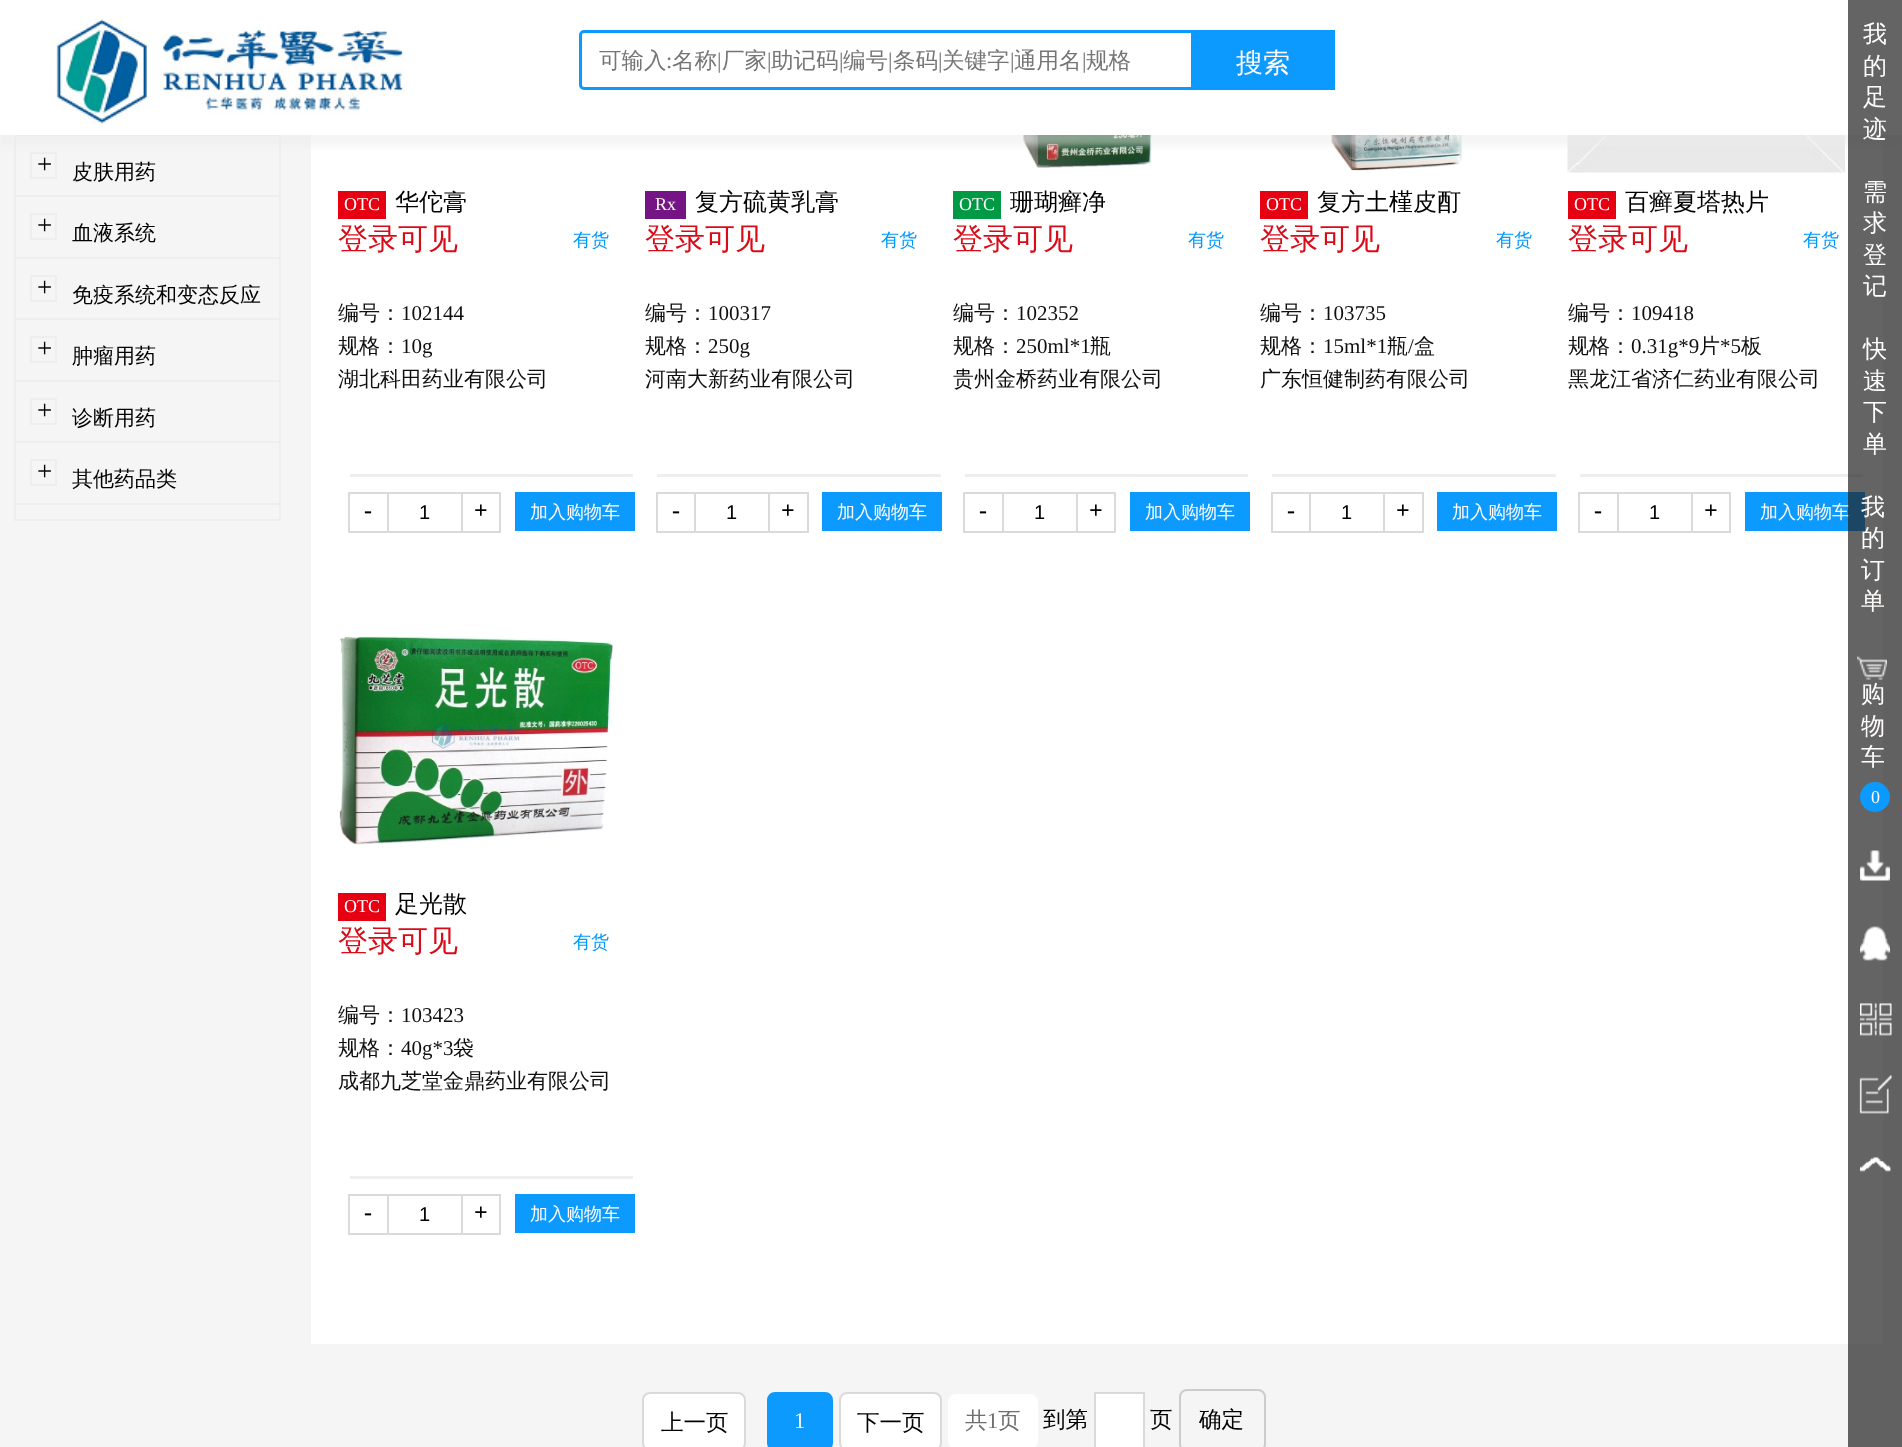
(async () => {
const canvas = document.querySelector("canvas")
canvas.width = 1902
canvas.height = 1447
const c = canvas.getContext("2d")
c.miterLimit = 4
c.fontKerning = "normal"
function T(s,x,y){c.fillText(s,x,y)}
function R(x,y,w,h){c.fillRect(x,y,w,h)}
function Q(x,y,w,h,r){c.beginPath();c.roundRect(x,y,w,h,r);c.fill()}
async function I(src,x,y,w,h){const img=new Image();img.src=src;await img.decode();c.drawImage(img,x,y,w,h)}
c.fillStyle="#f5f5f5"
R(0,0,1902,1447)
c.strokeStyle="#eee"
c.lineWidth=2
c.strokeRect(15,-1,265,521)
c.fillStyle="#eee"
R(15,135,264,1)
c.strokeRect(31,153,25,25)
c.fillStyle="#fff"
R(311,135,1572,1209)
await I("8.png",1022,135,134,33)
await I("9.png",1330,135,133,36)
await I("10.png",1567,135,278,38)
c.fillStyle="#ececec80"
c.filter="blur(3px)"
c.beginPath()
c.rect(0,11,1902,135)
c.fill()
c.filter="none"
c.fillStyle="#fff"
R(0,0,1902,135)
await I("1.png",53,19,352,105)
c.beginPath()
c.roundRect(580.5,31.5,636,57,3.5)
c.strokeStyle="#0c9aff"
c.lineWidth=3
c.stroke()
c.font="500 22.5px WenQuanYi Zen Hei"
c.fillStyle="#757575"
T("可输入",599,68)
c.font="22.5px Liberation Serif"
T(":",666,68)
c.font="500 22.5px WenQuanYi Zen Hei"
T("名称",672,68)
c.font="22.5px Liberation Serif"
T("|",717,68)
c.font="500 22.5px WenQuanYi Zen Hei"
T("厂家",722,68)
c.font="22.5px Liberation Serif"
T("|",767,68)
c.font="500 22.5px WenQuanYi Zen Hei"
T("助记码",771,68)
c.font="22.5px Liberation Serif"
T("|",839,68)
c.font="500 22.5px WenQuanYi Zen Hei"
T("编号",843,68)
c.font="22.5px Liberation Serif"
T("|",888,68)
c.font="500 22.5px WenQuanYi Zen Hei"
T("条码",893,68)
c.font="22.5px Liberation Serif"
T("|",938,68)
c.font="500 22.5px WenQuanYi Zen Hei"
T("关键字",942,68)
c.font="22.5px Liberation Serif"
T("|",1010,68)
c.font="500 22.5px WenQuanYi Zen Hei"
T("通用名",1014,68)
c.font="22.5px Liberation Serif"
T("|",1082,68)
c.font="500 22.5px WenQuanYi Zen Hei"
T("规格",1086,68)
c.fillStyle="#0c9aff"
R(1191,30,144,60)
c.font="500 27px WenQuanYi Zen Hei"
c.fillStyle="#fffcfc"
T("搜索",1236,72)
c.fillStyle="#eee"
R(1580,474,283,3)
c.fillStyle="#0c9aff"
R(1745,492,120,39)
c.font="500 18px WenQuanYi Zen Hei"
c.fillStyle="#fffcfc"
T("加入购物车",1760,518)
c.fillStyle="#222222b3"
R(1848,0,54,1447)
c.font="500 24px WenQuanYi Zen Hei"
c.fillStyle="#fffcfc"
T("我",1863,42)
T("的",1863,74)
T("足",1863,105)
T("迹",1863,137)
T("需",1863,200)
T("求",1863,231)
T("登",1863,263)
T("记",1863,294)
T("快",1863,357)
T("速",1863,389)
T("下",1863,420)
T("单",1863,452)
c.letterSpacing="4px"
T("我",1861,515)
T("的",1861,546)
T("订",1861,578)
T("单",1861,609)
await I("2.png",1857,656,30,24)
T("购",1861,702)
T("物",1861,734)
T("车",1861,765)
c.fillStyle="#0c9aff"
c.beginPath()
c.arc(1875,797,15,0,7)
c.fill()
c.letterSpacing="0px"
c.font="18px Liberation Serif"
c.fillStyle="#fffcfc"
T("0",1871,803)
await I("3.png",1860,850,30,31)
await I("4.png",1860,926,30,35)
await I("5.png",1860,1003,32,33)
await I("6.png",1859,1075,33,39)
await I("7.png",1860,1156,31,16)
c.fillStyle="#eee"
R(15,195,264,2)
c.font="27px Liberation Serif"
c.fillStyle="#000"
T("+",37,173)
c.font="500 21px WenQuanYi Zen Hei"
T("皮肤用药",72,179)
c.fillStyle="#eee"
R(15,257,264,2)
c.strokeStyle="#eee"
c.lineWidth=2
c.strokeRect(31,214,25,25)
c.font="27px Liberation Serif"
c.fillStyle="#000"
T("+",37,234)
c.font="500 21px WenQuanYi Zen Hei"
T("血液系统",72,240)
c.fillStyle="#eee"
R(15,318,264,2)
c.strokeRect(31,276,25,25)
c.font="27px Liberation Serif"
c.fillStyle="#000"
T("+",37,296)
c.font="500 21px WenQuanYi Zen Hei"
T("免疫系统和变态反应",72,302)
c.fillStyle="#eee"
R(15,380,264,2)
c.strokeRect(31,337,25,25)
c.font="27px Liberation Serif"
c.fillStyle="#000"
T("+",37,357)
c.font="500 21px WenQuanYi Zen Hei"
T("肿瘤用药",72,363)
c.fillStyle="#eee"
R(15,441,264,2)
c.strokeRect(31,399,25,25)
c.font="27px Liberation Serif"
c.fillStyle="#000"
T("+",37,419)
c.font="500 21px WenQuanYi Zen Hei"
T("诊断用药",72,425)
c.fillStyle="#eee"
R(15,503,264,2)
c.strokeRect(31,460,25,25)
c.font="27px Liberation Serif"
c.fillStyle="#000"
T("+",37,480)
c.font="500 21px WenQuanYi Zen Hei"
T("其他药品类",72,486)
c.fillStyle="#e60012"
R(338,191,48,28)
c.font="18px Liberation Serif"
c.fillStyle="#fffcfc"
T("OTC",344,210)
c.font="500 24px WenQuanYi Zen Hei"
c.fillStyle="#000"
T("华佗膏",395,210)
c.font="500 30px WenQuanYi Zen Hei"
c.fillStyle="#d80c18"
T("登录可见",338,249)
c.font="500 18px WenQuanYi Zen Hei"
c.fillStyle="#09f"
T("有货",573,246)
c.font="500 21px WenQuanYi Zen Hei"
c.fillStyle="#0f0f0f"
T("编号：",338,320)
c.font="21px Liberation Serif"
T("102144",401,320)
c.font="500 21px WenQuanYi Zen Hei"
T("规格：",338,353)
c.font="21px Liberation Serif"
T("10g",401,353)
c.font="500 21px WenQuanYi Zen Hei"
T("湖北科田药业有限公司",338,386)
c.fillStyle="#eee"
R(350,474,283,3)
c.strokeStyle="#dadada"
c.strokeRect(349,493,39,39)
c.font="bold 24px Liberation Serif"
c.fillStyle="#000"
T("-",364,518)
c.fillStyle="#dadada"
R(389,492,72,2)
R(389,531,72,2)
c.font="20px Liberation Sans"
c.fillStyle="#000"
T("1",419,519)
c.strokeRect(462,493,38,39)
c.font="bold 24px Liberation Serif"
T("+",474,518)
c.fillStyle="#0c9aff"
R(515,492,120,39)
c.font="500 18px WenQuanYi Zen Hei"
c.fillStyle="#fffcfc"
T("加入购物车",530,518)
c.fillStyle="#751485"
R(645,191,41,28)
c.font="18px Liberation Serif"
c.fillStyle="#fffcfc"
T("Rx",655,210)
c.font="500 24px WenQuanYi Zen Hei"
c.fillStyle="#000"
T("复方硫黄乳膏",695,210)
c.font="500 30px WenQuanYi Zen Hei"
c.fillStyle="#d80c18"
T("登录可见",645,249)
c.font="500 18px WenQuanYi Zen Hei"
c.fillStyle="#09f"
T("有货",881,246)
c.font="500 21px WenQuanYi Zen Hei"
c.fillStyle="#0f0f0f"
T("编号：",645,320)
c.font="21px Liberation Serif"
T("100317",708,320)
c.font="500 21px WenQuanYi Zen Hei"
T("规格：",645,353)
c.font="21px Liberation Serif"
T("250g",708,353)
c.font="500 21px WenQuanYi Zen Hei"
T("河南大新药业有限公司",645,386)
c.fillStyle="#eee"
R(657,474,284,3)
c.strokeRect(657,493,38,39)
c.font="bold 24px Liberation Serif"
c.fillStyle="#000"
T("-",672,518)
c.fillStyle="#dadada"
R(696,492,72,2)
R(696,531,72,2)
c.font="20px Liberation Sans"
c.fillStyle="#000"
T("1",726,519)
c.strokeRect(769,493,39,39)
c.font="bold 24px Liberation Serif"
T("+",781,518)
c.fillStyle="#0c9aff"
R(822,492,120,39)
c.font="500 18px WenQuanYi Zen Hei"
c.fillStyle="#fffcfc"
T("加入购物车",837,518)
c.fillStyle="#094"
R(953,191,48,28)
c.font="18px Liberation Serif"
c.fillStyle="#fffcfc"
T("OTC",959,210)
c.font="500 24px WenQuanYi Zen Hei"
c.fillStyle="#000"
T("珊瑚癣净",1010,210)
c.font="500 30px WenQuanYi Zen Hei"
c.fillStyle="#d80c18"
T("登录可见",953,249)
c.font="500 18px WenQuanYi Zen Hei"
c.fillStyle="#09f"
T("有货",1188,246)
c.font="500 21px WenQuanYi Zen Hei"
c.fillStyle="#0f0f0f"
T("编号：",953,320)
c.font="21px Liberation Serif"
T("102352",1016,320)
c.font="500 21px WenQuanYi Zen Hei"
T("规格：",953,353)
c.font="21px Liberation Serif"
T("250ml*1",1016,353)
c.font="500 21px WenQuanYi Zen Hei"
T("瓶",1090,353)
T("贵州金桥药业有限公司",953,386)
c.fillStyle="#eee"
R(965,474,283,3)
c.strokeRect(964,493,39,39)
c.font="bold 24px Liberation Serif"
c.fillStyle="#000"
T("-",979,518)
c.fillStyle="#dadada"
R(1004,492,72,2)
R(1004,531,72,2)
c.font="20px Liberation Sans"
c.fillStyle="#000"
T("1",1034,519)
c.strokeRect(1077,493,38,39)
c.font="bold 24px Liberation Serif"
T("+",1089,518)
c.fillStyle="#0c9aff"
R(1130,492,120,39)
c.font="500 18px WenQuanYi Zen Hei"
c.fillStyle="#fffcfc"
T("加入购物车",1145,518)
c.fillStyle="#e60012"
R(1260,191,48,28)
c.font="18px Liberation Serif"
c.fillStyle="#fffcfc"
T("OTC",1266,210)
c.font="500 24px WenQuanYi Zen Hei"
c.fillStyle="#000"
T("复方土槿皮酊",1317,210)
c.font="500 30px WenQuanYi Zen Hei"
c.fillStyle="#d80c18"
T("登录可见",1260,249)
c.font="500 18px WenQuanYi Zen Hei"
c.fillStyle="#09f"
T("有货",1496,246)
c.font="500 21px WenQuanYi Zen Hei"
c.fillStyle="#0f0f0f"
T("编号：",1260,320)
c.font="21px Liberation Serif"
T("103735",1323,320)
c.font="500 21px WenQuanYi Zen Hei"
T("规格：",1260,353)
c.font="21px Liberation Serif"
T("15ml*1",1323,353)
c.font="500 21px WenQuanYi Zen Hei"
T("瓶",1387,353)
c.font="21px Liberation Serif"
T("/",1408,353)
c.font="500 21px WenQuanYi Zen Hei"
T("盒",1414,353)
T("广东恒健制药有限公司",1260,386)
c.fillStyle="#eee"
R(1272,474,284,3)
c.strokeRect(1272,493,38,39)
c.font="bold 24px Liberation Serif"
c.fillStyle="#000"
T("-",1287,518)
c.fillStyle="#dadada"
R(1311,492,72,2)
R(1311,531,72,2)
c.font="20px Liberation Sans"
c.fillStyle="#000"
T("1",1341,519)
c.strokeRect(1384,493,39,39)
c.font="bold 24px Liberation Serif"
T("+",1396,518)
c.fillStyle="#0c9aff"
R(1437,492,120,39)
c.font="500 18px WenQuanYi Zen Hei"
c.fillStyle="#fffcfc"
T("加入购物车",1452,518)
c.fillStyle="#e60012"
R(1568,191,48,28)
c.font="18px Liberation Serif"
c.fillStyle="#fffcfc"
T("OTC",1574,210)
c.font="500 24px WenQuanYi Zen Hei"
c.fillStyle="#000"
T("百癣夏塔热片",1625,210)
c.font="500 30px WenQuanYi Zen Hei"
c.fillStyle="#d80c18"
T("登录可见",1568,249)
c.font="500 18px WenQuanYi Zen Hei"
c.fillStyle="#09f"
T("有货",1803,246)
c.font="500 21px WenQuanYi Zen Hei"
c.fillStyle="#0f0f0f"
T("编号：",1568,320)
c.font="21px Liberation Serif"
T("109418",1631,320)
c.font="500 21px WenQuanYi Zen Hei"
T("规格：",1568,353)
c.font="21px Liberation Serif"
T("0.31g*9",1631,353)
c.font="500 21px WenQuanYi Zen Hei"
T("片",1699,353)
c.font="21px Liberation Serif"
T("*5",1720,353)
c.font="500 21px WenQuanYi Zen Hei"
T("板",1741,353)
T("黑龙江省济仁药业有限公司",1568,386)
c.strokeRect(1579,493,39,39)
c.font="bold 24px Liberation Serif"
c.fillStyle="#000"
T("-",1594,518)
c.fillStyle="#dadada"
R(1619,492,72,2)
R(1619,531,72,2)
c.font="20px Liberation Sans"
c.fillStyle="#000"
T("1",1649,519)
c.strokeRect(1692,493,38,39)
c.font="bold 24px Liberation Serif"
T("+",1704,518)
await I("11.png",339,636,275,209)
c.fillStyle="#e60012"
R(338,893,48,28)
c.font="18px Liberation Serif"
c.fillStyle="#fffcfc"
T("OTC",344,912)
c.font="500 24px WenQuanYi Zen Hei"
c.fillStyle="#000"
T("足光散",395,912)
c.font="500 30px WenQuanYi Zen Hei"
c.fillStyle="#d80c18"
T("登录可见",338,951)
c.font="500 18px WenQuanYi Zen Hei"
c.fillStyle="#09f"
T("有货",573,948)
c.font="500 21px WenQuanYi Zen Hei"
c.fillStyle="#0f0f0f"
T("编号：",338,1022)
c.font="21px Liberation Serif"
T("103423",401,1022)
c.font="500 21px WenQuanYi Zen Hei"
T("规格：",338,1055)
c.font="21px Liberation Serif"
T("40g*3",401,1055)
c.font="500 21px WenQuanYi Zen Hei"
T("袋",453,1055)
T("成都九芝堂金鼎药业有限公司",338,1088)
c.fillStyle="#eee"
R(350,1176,283,3)
c.strokeRect(349,1195,39,39)
c.font="bold 24px Liberation Serif"
c.fillStyle="#000"
T("-",364,1220)
c.fillStyle="#dadada"
R(389,1194,72,2)
R(389,1233,72,2)
c.font="20px Liberation Sans"
c.fillStyle="#000"
T("1",419,1221)
c.strokeRect(462,1195,38,39)
c.font="bold 24px Liberation Serif"
T("+",474,1220)
c.fillStyle="#0c9aff"
R(515,1194,120,39)
c.font="500 18px WenQuanYi Zen Hei"
c.fillStyle="#fffcfc"
T("加入购物车",530,1220)
c.fillStyle="#fff"
c.beginPath()
c.roundRect(643,1393,102,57,7)
c.fill()
c.stroke()
c.font="500 22.5px WenQuanYi Zen Hei"
c.fillStyle="#000"
T("上一页",661,1430)
c.fillStyle="#0c9aff"
c.beginPath()
c.roundRect(768,1393,64,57,7)
c.fill()
c.strokeStyle="#0c9aff"
c.stroke()
c.font="22.5px Liberation Serif"
c.fillStyle="#fffcfc"
T("1",794,1428)
c.fillStyle="#fff"
c.beginPath()
c.roundRect(840,1393,101,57,7)
c.fill()
c.strokeStyle="#dadada"
c.stroke()
c.font="500 22.5px WenQuanYi Zen Hei"
c.fillStyle="#000"
T("下一页",857,1430)
c.fillStyle="#fff"
Q(948,1394,90,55,8)
c.fillStyle="#6f6f6f"
T("共",965,1428)
c.font="22.5px Liberation Serif"
T("1",987,1428)
c.font="500 22.5px WenQuanYi Zen Hei"
T("页",998,1428)
c.fillStyle="#000"
T("到第",1043,1427)
c.fillStyle="#fff"
c.beginPath()
c.rect(1095,1393,49,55)
c.fill()
c.stroke()
c.fillStyle="#000"
T("页",1150,1427)
c.beginPath()
c.roundRect(1180,1390,85,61,7)
c.strokeStyle="#ccc"
c.stroke()
T("确定",1199,1427)
})()
